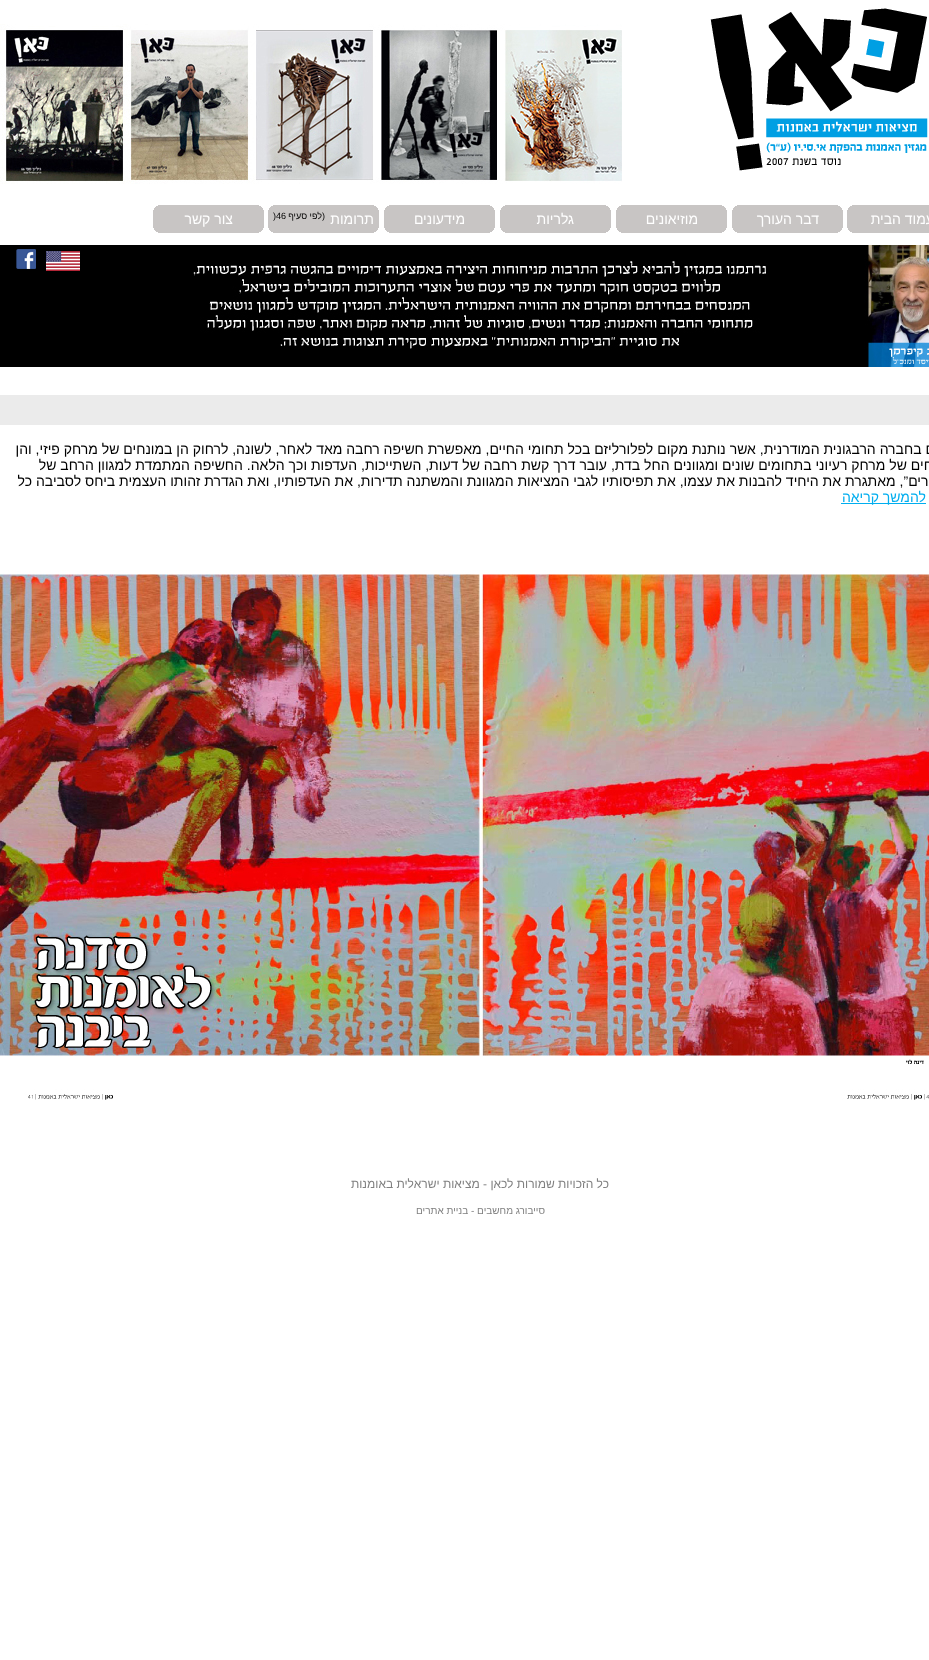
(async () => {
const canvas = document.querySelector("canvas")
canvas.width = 929
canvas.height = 1660
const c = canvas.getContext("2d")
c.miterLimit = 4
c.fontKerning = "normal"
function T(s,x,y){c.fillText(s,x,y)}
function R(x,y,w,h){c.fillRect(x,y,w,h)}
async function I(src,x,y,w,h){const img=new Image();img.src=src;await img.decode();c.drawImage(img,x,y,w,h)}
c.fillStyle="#fff"
R(0,0,929,1660)
await I("1.png",0,24,622,160)
await I("2.png",710,8,218,163)
await I("3.png",847,205,82,28)
c.direction="rtl"
c.font="14px Liberation Sans"
T("עמוד הבית",934,224)
await I("4.png",732,205,111,28)
T("דבר העורך",819,224)
await I("4.png",616,205,111,28)
T("מוזיאונים",698,224)
await I("4.png",500,205,111,28)
T("גלריות",574,224)
await I("4.png",384,205,111,28)
T("מידעונים",465,224)
await I("4.png",268,205,111,28)
T("תרומות",374,224)
c.font="9px Liberation Sans"
c.fillStyle="#000"
T("(לפי סעיף",325,219)
c.direction="ltr"
T(")46",273,219)
await I("4.png",153,205,111,28)
c.direction="rtl"
c.font="14px Liberation Sans"
c.fillStyle="#fff"
T("צור קשר",233,224)
await I("5.png",0,245,929,122)
await I("6.png",46,251,34,20)
await I("7.png",16,249,20,20)
c.fillStyle="#ebebeb"
R(0,395,929,30)
c.fillStyle="#000"
T("החיים בחברה הרבגונית המודרנית, אשר נותנת מקום לפלורליזם בכל תחומי החיים, מאפשרת חשיפה רחבה מאד לאחר, לשונה, לרחוק הן במונחים של מרחק פיזי, והן",960,454)
T("במונחים של מרחק רעיוני בתחומים שונים ומגוונים החל בדת, עובר דרך קשת רחבה של דעות, השתייכות, העדפות וכך הלאה. החשיפה המתמדת למגוון הרחב של",960,470)
T("ה”אחרים”, מאתגרת את היחיד להבנות את עצמו, את תפיסותיו לגבי המציאות המגוונת והמשתנה תדירות, את העדפותיו, ואת הגדרת זהותו העצמית ביחס לסביבה כל",960,486)
c.fillStyle="#00aeef"
R(841,503,85,1)
T("להמשך קריאה",926,502)
await I("8.png",0,570,929,530)
c.font="12px Liberation Sans"
c.fillStyle="#808080"
T("כל הזכויות שמורות לכאן - מציאות ישראלית באומנות",609,1188)
c.font="10px Liberation Sans"
T("סייבורג מחשבים - בניית אתרים",545,1214)
})()
